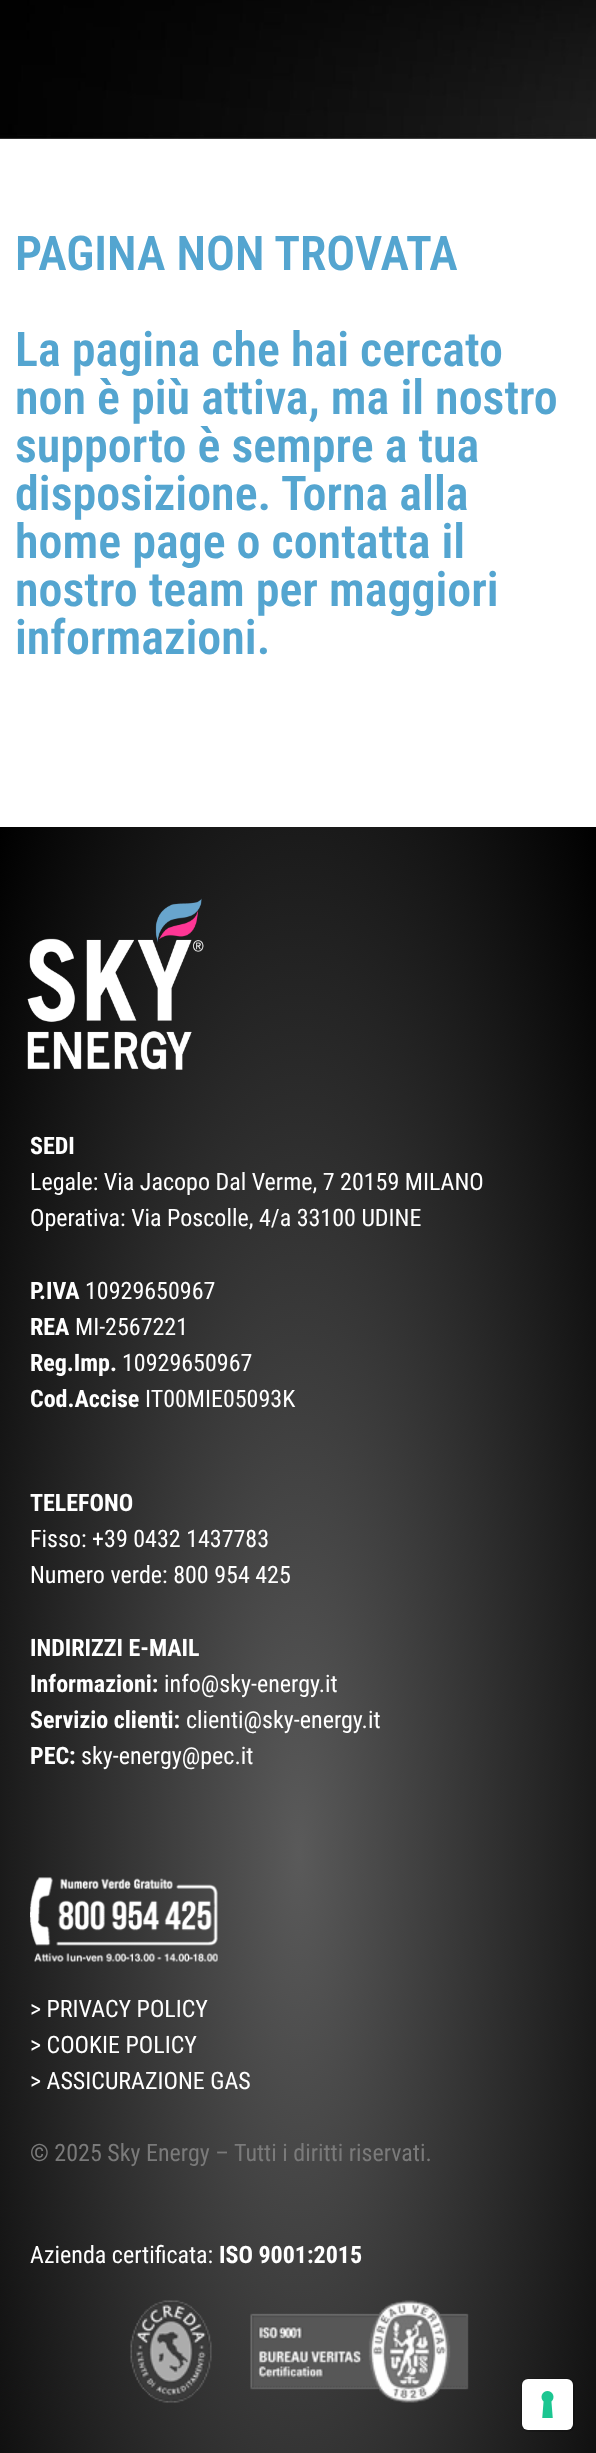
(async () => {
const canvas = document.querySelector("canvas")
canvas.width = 596
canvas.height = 2453
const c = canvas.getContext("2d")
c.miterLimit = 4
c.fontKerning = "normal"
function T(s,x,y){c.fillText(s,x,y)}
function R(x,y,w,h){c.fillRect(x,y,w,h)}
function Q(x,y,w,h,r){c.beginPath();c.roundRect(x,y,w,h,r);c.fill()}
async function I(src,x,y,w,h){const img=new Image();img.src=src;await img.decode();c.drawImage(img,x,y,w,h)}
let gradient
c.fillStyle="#fff"
R(0,0,596,2453)
await I("1.png",0,0,596,139)
c.font="600 48px Roboto Condensed"
c.fillStyle="#54a5d0"
T("PAGINA NON TROVATA",15,270)
T("La pagina che hai cercato",15,366)
T("non è più attiva, ma il nostro",15,414)
T("supporto è sempre a tua",15,462)
T("disposizione. Torna alla",15,510)
T("home page o contatta il",15,558)
T("nostro team per maggiori",15,606)
T("informazioni.",15,654)
gradient = c.createRadialGradient(299,538.92,0,299,538.92,422)
gradient.addColorStop(0,"#5a5a5a")
gradient.addColorStop(1,"#000")
c.fillStyle = gradient
c.beginPath()
c.rect(0,827,596,1626)
c.save()
c.clip()
c.scale(1,1451 / 422)
c.fillRect(0,0,596,714)
c.restore()
await I("2.png",27,898,177,172)
c.font="bold 24px Roboto Condensed"
c.fillStyle="#fff"
T("SEDI",30,1154)
c.font="24px Roboto Condensed"
T("Legale: Via Jacopo Dal Verme, 7 20159 MILANO",30,1190)
T("Operativa: Via Poscolle, 4/a 33100 UDINE",30,1226)
c.font="bold 24px Roboto Condensed"
T("P.IVA",30,1299)
c.font="24px Roboto Condensed"
T("10929650967",85,1299)
c.font="bold 24px Roboto Condensed"
T("REA",30,1335)
c.font="24px Roboto Condensed"
T("MI-2567221",75,1335)
c.font="bold 24px Roboto Condensed"
T("Reg.Imp.",30,1371)
c.font="24px Roboto Condensed"
T("10929650967",122,1371)
c.font="bold 24px Roboto Condensed"
T("Cod.Accise",30,1407)
c.font="24px Roboto Condensed"
T("IT00MIE05093K",145,1407)
c.font="bold 24px Roboto Condensed"
T("TELEFONO",30,1511)
c.font="24px Roboto Condensed"
T("Fisso: +39 0432 1437783",30,1547)
T("Numero verde: 800 954 425",30,1583)
c.font="bold 24px Roboto Condensed"
T("INDIRIZZI E-MAIL",30,1656)
T("Informazioni:",30,1692)
c.font="24px Roboto Condensed"
T("info@sky-energy.it",164,1692)
c.font="bold 24px Roboto Condensed"
T("Servizio clienti:",30,1728)
c.font="24px Roboto Condensed"
T("clienti@sky-energy.it",186,1728)
c.font="bold 24px Roboto Condensed"
T("PEC:",30,1764)
c.font="24px Roboto Condensed"
T("sky-energy@pec.it",81,1764)
await I("3.png",30,1877,188,85)
T("> PRIVACY POLICY",30,2017)
T("> COOKIE POLICY",30,2053)
T("> ASSICURAZIONE GAS",30,2089)
c.fillStyle="#7a7a7a"
T("© 2025 Sky Energy – Tutti i diritti riservati.",30,2161)
c.fillStyle="#fff"
T("Azienda certificata:",30,2263)
c.font="bold 24px Roboto Condensed"
T("ISO 9001:2015",219,2263)
await I("4.png",130,2300,339,103)
c.beginPath()
c.roundRect(522,2379,52,52,7)
c.strokeStyle="#00000026"
c.lineWidth=2
c.stroke()
Q(522,2379,51,51,6)
await I("5.png",541,2391,13,27)
})()
